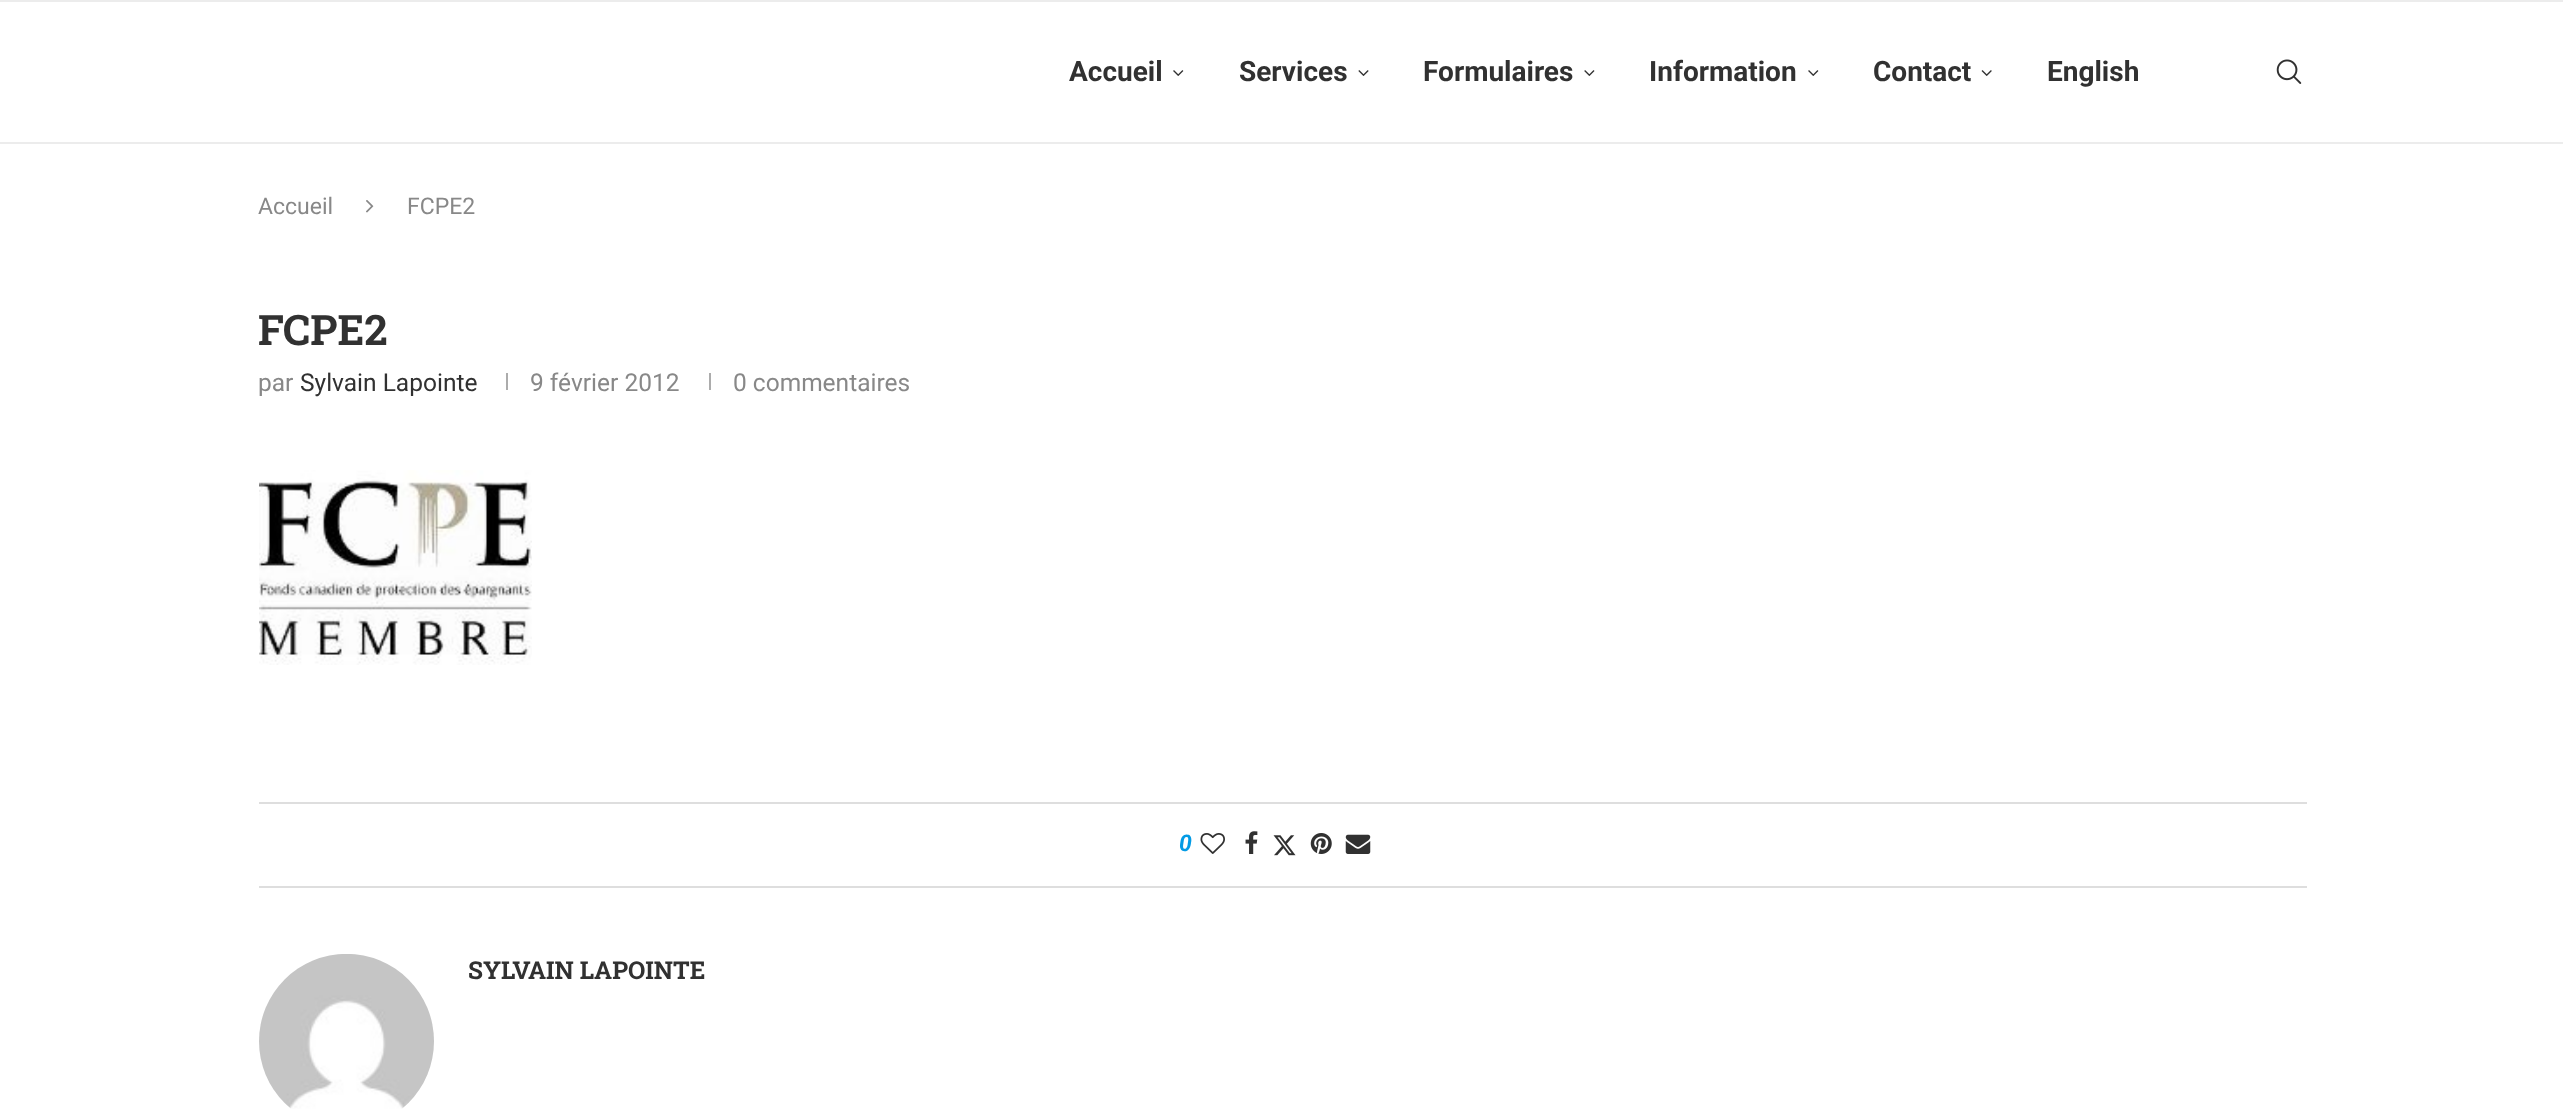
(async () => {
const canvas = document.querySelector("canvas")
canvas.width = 2563
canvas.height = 1112
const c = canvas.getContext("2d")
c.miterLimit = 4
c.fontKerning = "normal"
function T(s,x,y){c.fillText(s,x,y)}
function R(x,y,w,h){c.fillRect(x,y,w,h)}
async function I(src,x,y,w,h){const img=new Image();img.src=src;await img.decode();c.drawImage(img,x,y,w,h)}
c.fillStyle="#fff"
R(0,0,2563,1112)
c.fillStyle="#ececec"
R(0,0,2563,2)
R(0,142,2563,2)
c.font="bold 28px Roboto"
c.fillStyle="#313131"
T("Accueil",1069,81)
await I("1.png",1173,70,11,6)
T("Services",1239,81)
await I("2.png",1358,70,11,6)
T("Formulaires",1423,81)
await I("3.png",1584,70,11,6)
T("Information",1649,81)
await I("4.png",1808,70,11,6)
T("Contact",1873,81)
await I("5.png",1981,70,11,6)
T("English",2047,81)
await I("6.png",2276,59,26,25)
c.font="23px Roboto"
c.fillStyle="#888"
T("Accueil",258,214)
await I("7.png",366,200,8,13)
T("FCPE2",407,214)
c.font="bold 42px Roboto Slab"
c.fillStyle="#313131"
T("FCPE2",258,345)
c.font="24.5px Roboto"
c.fillStyle="#888"
T("par",258,391)
c.fillStyle="#313131"
T("Sylvain Lapointe",300,391)
c.fillStyle="#acacac"
R(506,373,2,17)
c.fillStyle="#888"
T("9 février 2012",530,391)
c.fillStyle="#acacac"
R(709,373,2,17)
c.fillStyle="#888"
T("0 commentaires",733,391)
await I("8.png",259,470,273,195)
c.fillStyle="#dedede"
R(259,802,2048,2)
c.font="italic bold 23px Roboto"
c.fillStyle="#039be5"
T("0",1179,851)
await I("9.png",1200,833,25,21)
await I("10.png",1245,831,13,23)
await I("11.png",1273,835,23,21)
await I("12.png",1310,833,22,21)
await I("13.png",1345,834,26,20)
c.fillStyle="#dedede"
R(259,886,2048,2)
await I("14.png",259,954,175,155)
c.font="bold 24.5px Roboto Slab"
c.fillStyle="#313131"
T("SYLVAIN LAPOINTE",468,979)
})()
